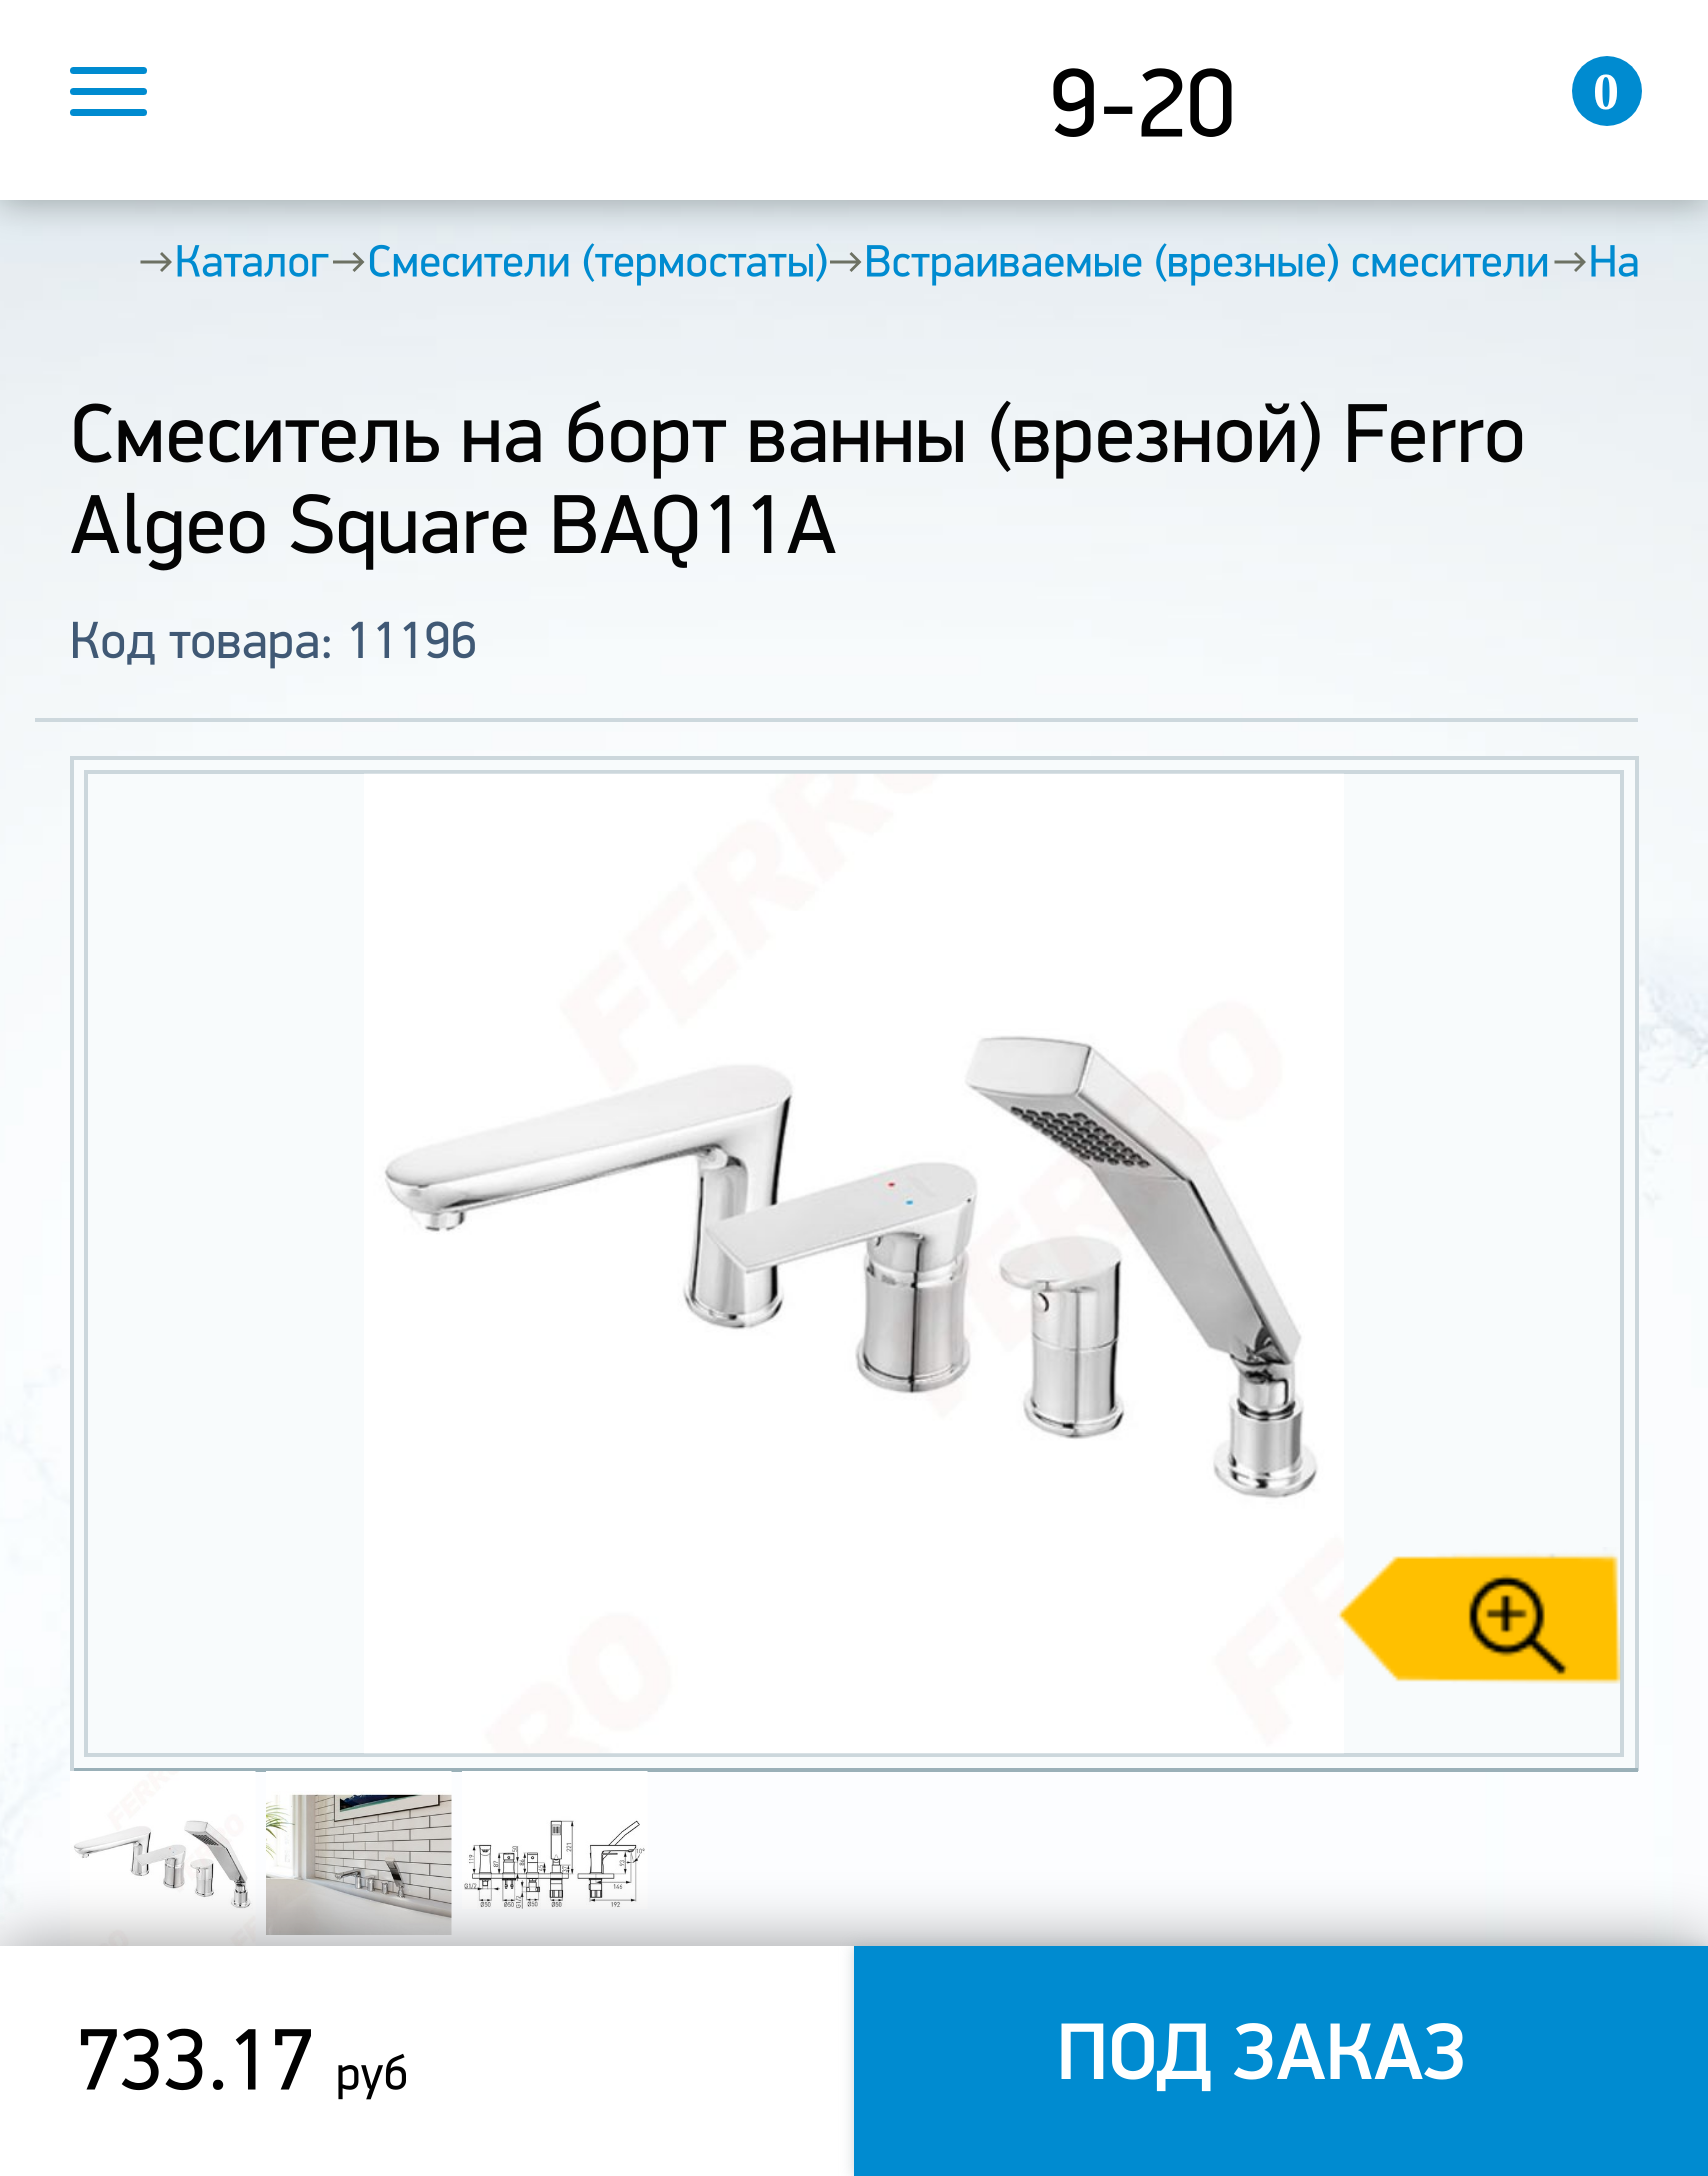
(async () => {
const canvas = document.querySelector("canvas")
canvas.width = 1708
canvas.height = 2176
const c = canvas.getContext("2d")
c.miterLimit = 4
c.fontKerning = "normal"
function T(s,x,y){c.fillText(s,x,y)}
function R(x,y,w,h){c.fillRect(x,y,w,h)}
function Q(x,y,w,h,r){c.beginPath();c.roundRect(x,y,w,h,r);c.fill()}
async function I(src,x,y,w,h){const img=new Image();img.src=src;await img.decode();c.drawImage(img,x,y,w,h)}
let path
c.fillStyle="#fff"
R(0,0,1708,2176)
await I("1.png",0,200,1708,1746)
c.fillStyle="#6d7163"
path = new Path2D("M166.5 260.5l-6.5-6.5l2-2l10 10l-10 10l-2-2l6.5-6.5h-26v-3z")
c.fill(path)
await I("3.png",177,245,152,33)
path = new Path2D("M359 260.5l-6.5-6.5l2-2l10 10l-10 10l-2-2l6.5-6.5h-26v-3z")
c.fill(path)
await I("4.png",369,243,458,43)
path = new Path2D("M856 260.5l-6.5-6.5l2-2l10 10l-10 10l-2-2l6.5-6.5h-26v-3z")
c.fill(path)
await I("5.png",867,243,681,43)
path = new Path2D("M1580.5 260.5l-6.5-6.5l2-2l10 10l-10 10l-2-2l6.5-6.5h-26v-3z")
c.fill(path)
await I("6.png",1591,245,47,32)
c.fillStyle="#0000004d"
c.filter="blur(17.5px)"
c.beginPath()
c.rect(0,4,1708,199)
c.fill()
c.filter="none"
c.fillStyle="#fff"
R(0,0,1708,200)
c.fillStyle="#008bd0"
Q(70,67,77,7,3.5)
Q(70,88,77,7,3.5)
Q(70,109,77,7,3.5)
await I("2.png",1053,68,179,69)
c.fillStyle="#cdd8dd"
R(35,718,1603,4)
await I("7.png",74,400,1449,79)
await I("8.png",71,492,765,79)
await I("9.png",73,621,402,48)
c.fillStyle="#f8fbfc"
R(74,760,1561,1008)
c.fillStyle="#ccd7dc"
R(70,756,1568,4)
R(1635,756,4,1015)
c.fillStyle="#9ab0b8"
R(70,1768,1568,4)
c.fillStyle="#ccd7dc"
R(70,756,4,1015)
c.strokeStyle="#ccd7dc"
c.lineWidth=4
c.strokeRect(86,772,1536,983)
await I("10.png",364,773,980,981)
await I("11.png",1337,1547,284,137)
await I("12.png",70,1771,186,175)
await I("13.png",266,1771,186,164)
await I("14.png",462,1771,186,138)
c.fillStyle="#008bd0"
c.beginPath()
c.arc(1607,91,35,0,7)
c.fill()
c.font="bold 52px Liberation Serif"
c.fillStyle="#fff"
T("0",1593,109)
c.fillStyle="#00000066"
c.filter="blur(33px)"
c.beginPath()
c.rect(0,1946,1708,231)
c.fill()
c.filter="none"
c.fillStyle="#fff"
R(0,1946,854,230)
await I("15.png",80,2028,231,63)
await I("16.png",338,2053,68,47)
c.fillStyle="#9baaaf80"
c.filter="blur(7px)"
c.beginPath()
c.rect(854,1946,854,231)
c.fill()
c.filter="none"
c.fillStyle="#008bd0"
R(854,1946,854,230)
await I("17.png",1061,2023,402,69)
})()
